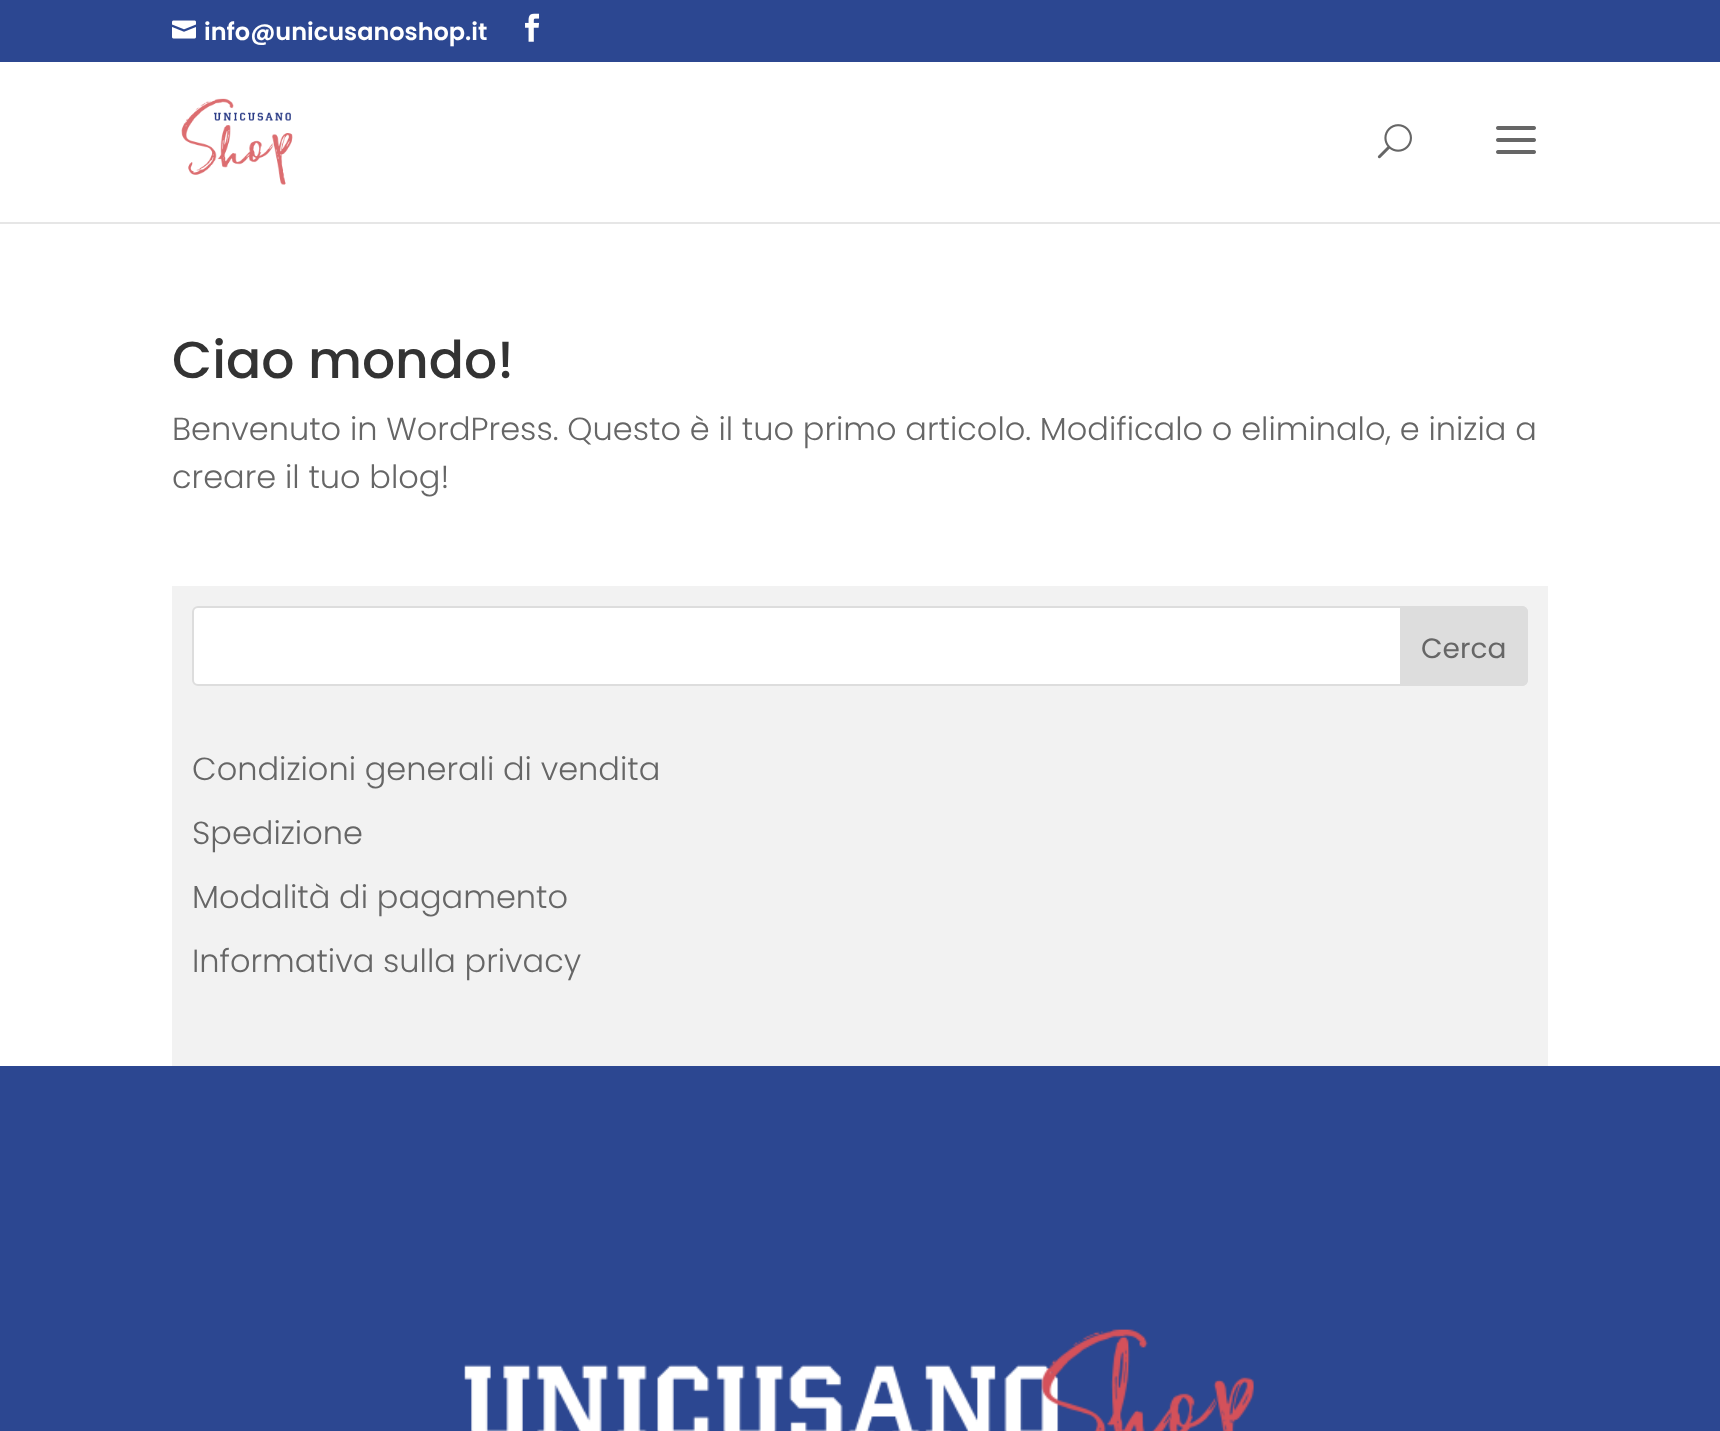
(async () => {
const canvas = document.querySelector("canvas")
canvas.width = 1720
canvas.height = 1431
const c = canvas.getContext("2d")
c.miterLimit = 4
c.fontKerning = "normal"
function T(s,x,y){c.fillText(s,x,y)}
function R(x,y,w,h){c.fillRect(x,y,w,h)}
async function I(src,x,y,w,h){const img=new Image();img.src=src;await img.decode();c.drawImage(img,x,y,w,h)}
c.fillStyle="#fff"
R(0,0,1720,1431)
c.fillStyle="#2c4791"
R(0,0,1720,62)
await I("1.png",172,20,24,19)
c.font="600 24px Poppins"
c.fillStyle="#fff"
T("info@unicusanoshop.it",204,40)
await I("2.png",525,13,15,29)
c.fillStyle="#e6e6e6"
R(0,222,1720,2)
await I("3.png",181,98,112,87)
await I("4.png",1377,124,35,35)
await I("5.png",1496,126,40,28)
c.font="500 52px Poppins"
c.fillStyle="#333"
T("Ciao mondo!",172,378)
c.font="300 32px Poppins"
c.fillStyle="#666"
T("Benvenuto in WordPress. Questo è il tuo primo articolo. Modificalo o eliminalo, e inizia a",172,440)
T("creare il tuo blog!",172,488)
c.fillStyle="#f2f2f2"
R(172,586,1376,480)
c.fillStyle="#fff"
c.beginPath()
c.roundRect(193,607,1334,78,5)
c.fill()
c.strokeStyle="#ddd"
c.lineWidth=2
c.stroke()
c.fillStyle="#ddd"
c.beginPath()
c.roundRect(1401,607,126,78,[0,5,5,0])
c.fill()
c.stroke()
c.font="28px Poppins"
c.fillStyle="#666"
T("Cerca",1421,658)
c.font="300 32px Poppins"
T("Condizioni generali di vendita",192,780)
T("Spedizione",192,844)
T("Modalità di pagamento",192,908)
T("Informativa sulla privacy",192,972)
c.fillStyle="#2c4791"
R(0,1066,1720,365)
await I("6.png",464,1329,790,102)
})()
